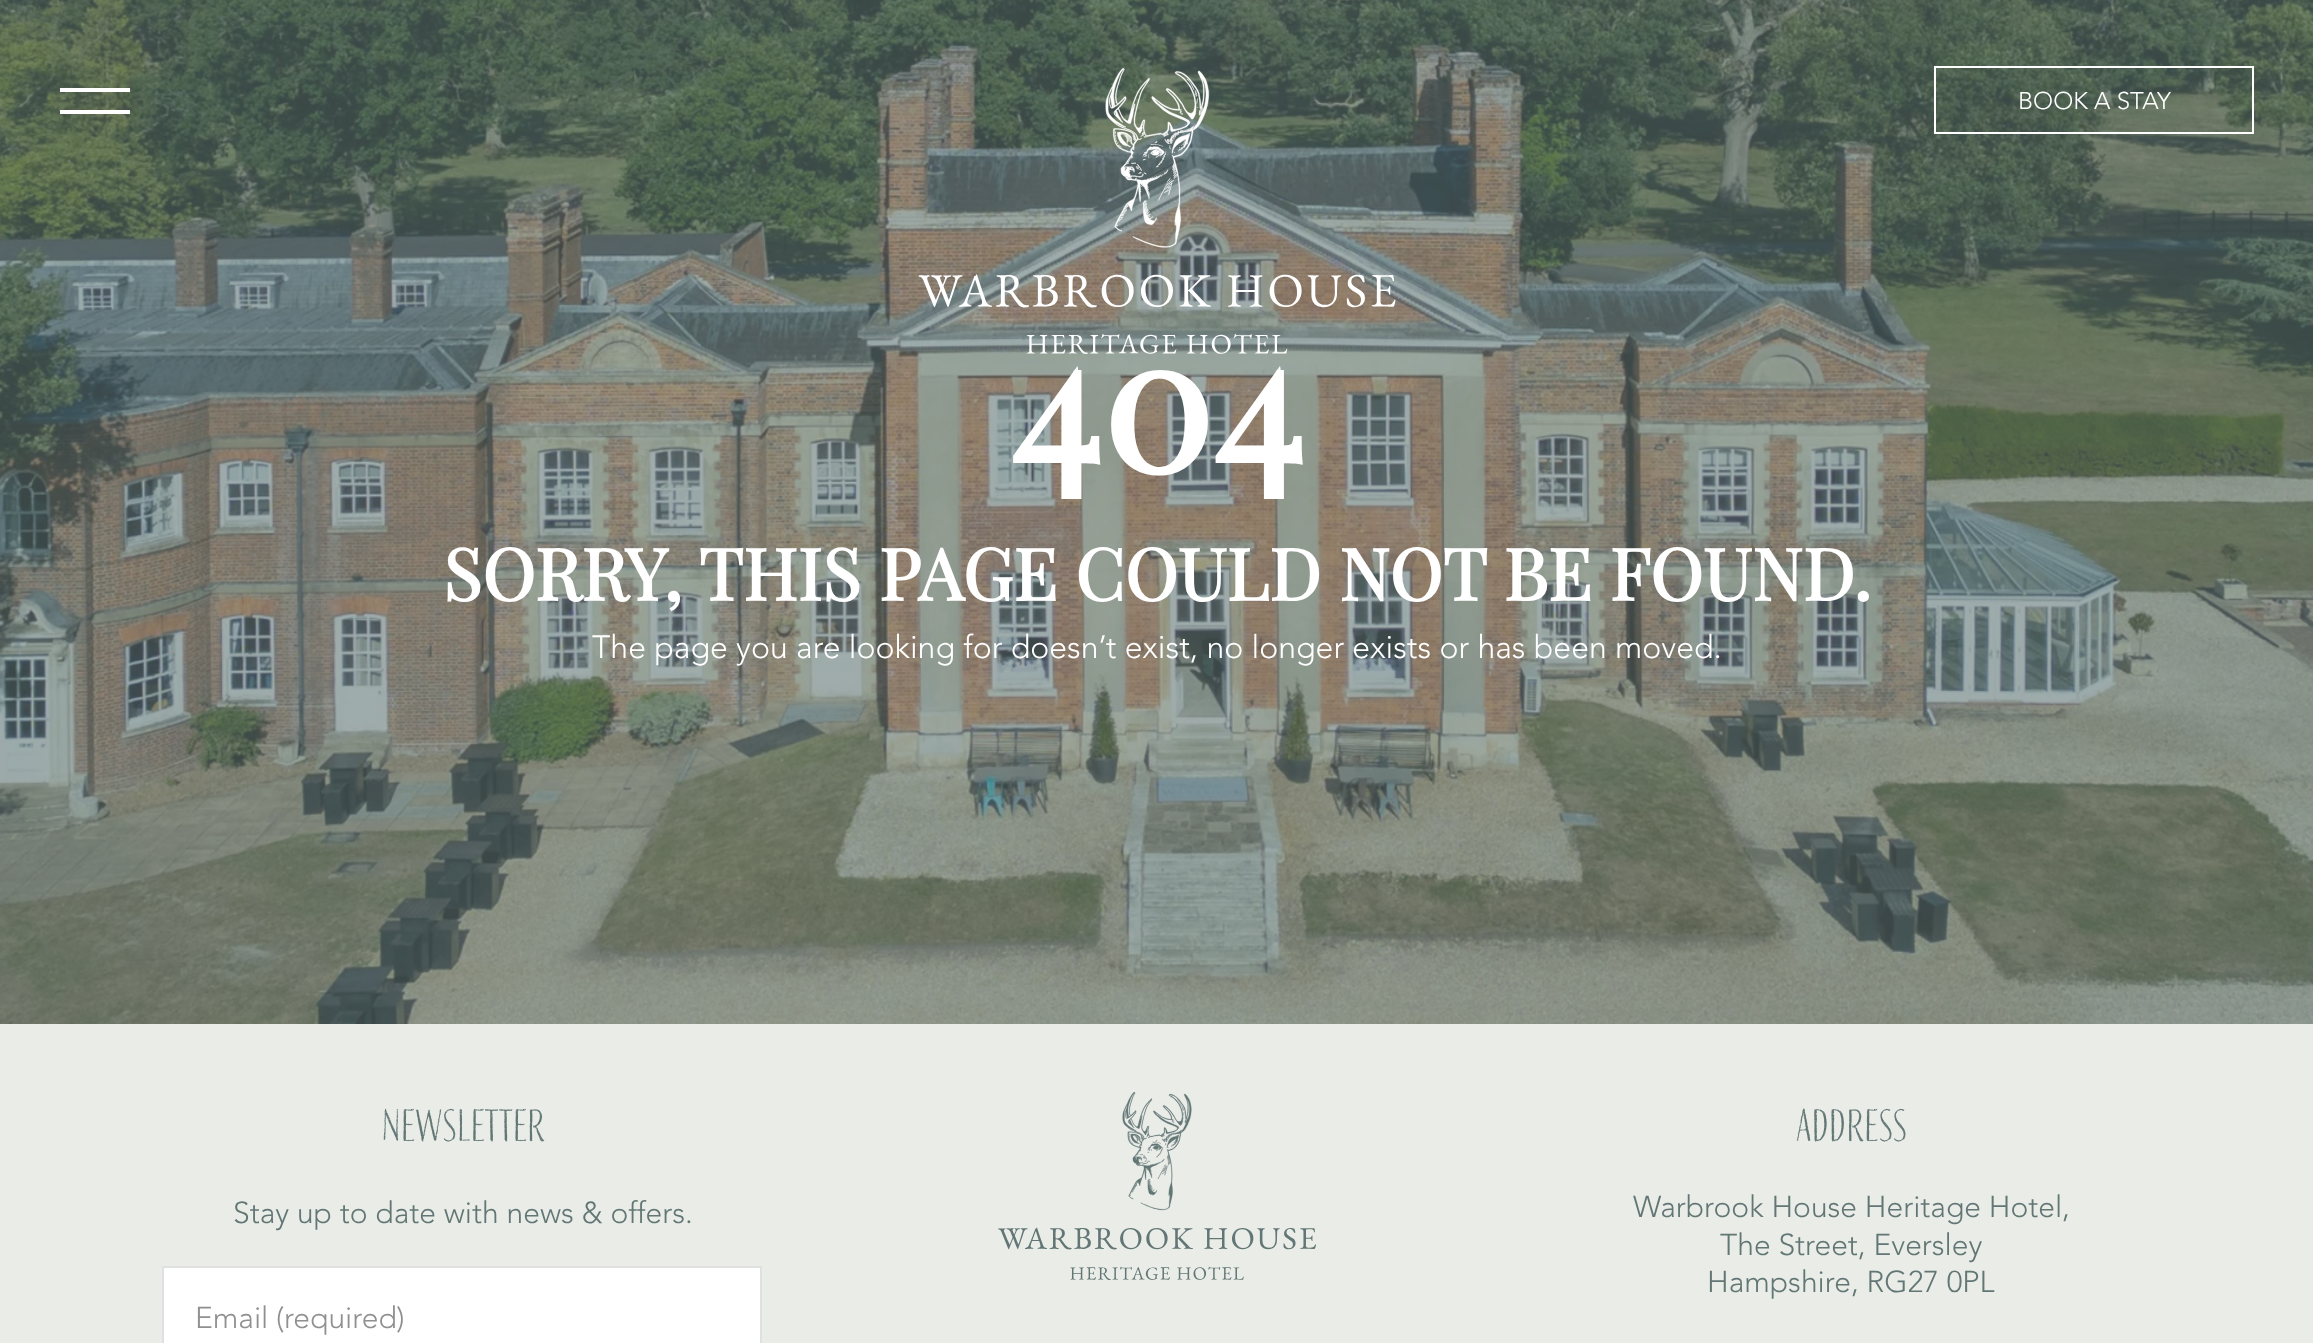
(async () => {
const canvas = document.querySelector("canvas")
canvas.width = 2313
canvas.height = 1343
const c = canvas.getContext("2d")
c.miterLimit = 4
c.fontKerning = "normal"
function T(s,x,y){c.fillText(s,x,y)}
function R(x,y,w,h){c.fillRect(x,y,w,h)}
async function I(src,x,y,w,h){const img=new Image();img.src=src;await img.decode();c.drawImage(img,x,y,w,h)}
c.fillStyle="#eaece8"
R(0,0,2313,1343)
await I("2.png",0,0,2313,1024)
c.fillStyle="#fff"
R(60,110,70,4)
R(60,88,70,4)
await I("1.png",918,68,478,286)
c.strokeStyle="#fff"
c.lineWidth=2
c.strokeRect(1935,67,318,66)
c.font="300 24px Avenir"
T("BOOK A STAY",2018,109)
c.font="bold 185px Playfair Display"
T("404",1010,473)
c.font="bold 72px Playfair Display"
T("SORRY, THIS PAGE COULD NOT BE FOUND.",443,601)
c.font="300 32px Avenir"
T("The page you are looking for doesn’t exist, no longer exists or has been moved.",592,658)
c.font="52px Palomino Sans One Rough"
c.fillStyle="#627775"
T("NEWSLETTER",381,1141)
c.font="300 30px Avenir"
T("Stay up to date with news & offers.",233,1223)
c.fillStyle="#fff"
c.beginPath()
c.rect(163,1267,598,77)
c.fill()
c.strokeStyle="#e0e0e0"
c.stroke()
c.fillStyle="#909090"
T("Email (required)",195,1328)
await I("3.png",998,1092,318,188)
c.font="52px Palomino Sans One Rough"
c.fillStyle="#627775"
T("ADDRESS",1796,1141)
c.font="300 30px Avenir"
T("Warbrook House Heritage Hotel,",1633,1217)
T("The Street, Eversley",1720,1255)
T("Hampshire, RG27 0PL",1707,1292)
})()
